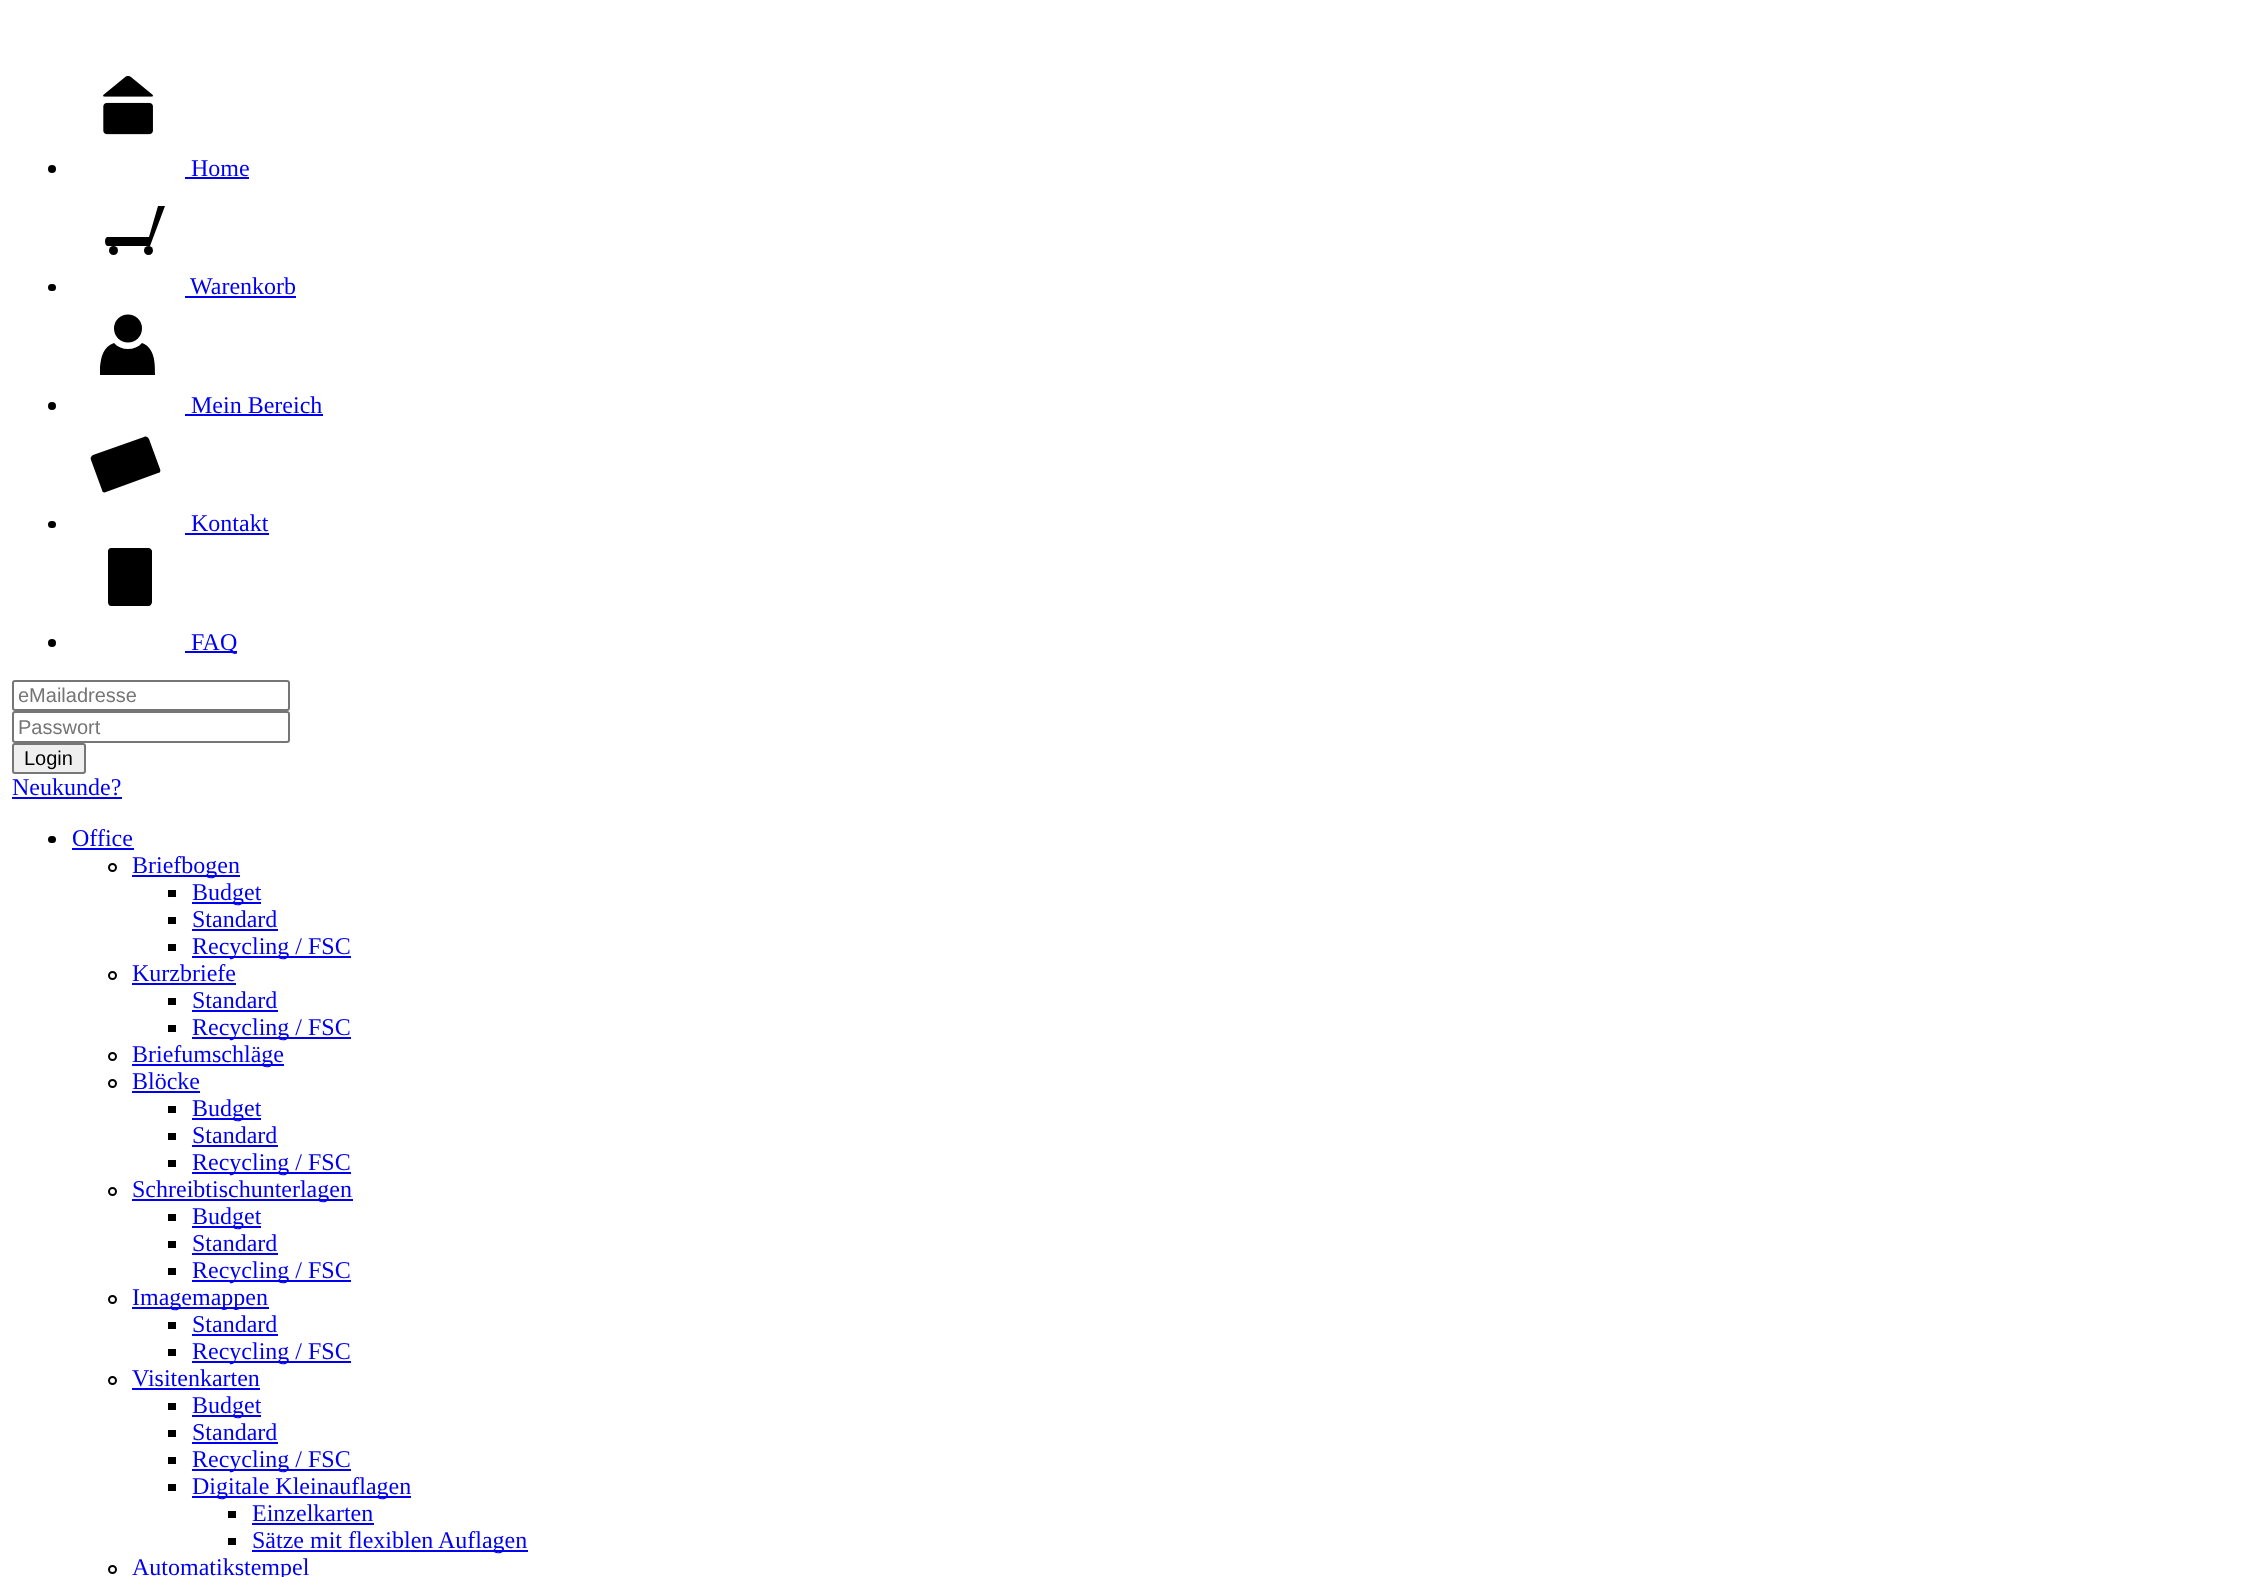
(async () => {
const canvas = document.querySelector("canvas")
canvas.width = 2267
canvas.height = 1577
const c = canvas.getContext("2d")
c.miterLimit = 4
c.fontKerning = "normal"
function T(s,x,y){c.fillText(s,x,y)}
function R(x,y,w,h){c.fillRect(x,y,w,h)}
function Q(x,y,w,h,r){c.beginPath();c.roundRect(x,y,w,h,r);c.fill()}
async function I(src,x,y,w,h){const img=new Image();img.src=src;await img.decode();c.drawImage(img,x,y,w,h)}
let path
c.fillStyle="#fff"
R(0,0,2267,1577)
await I("1.png",103,76,50,59)
c.fillStyle="#000"
c.beginPath()
c.arc(52,169,4,0,7)
c.fill()
c.font="24px Liberation Serif"
c.fillStyle="#00e"
T("Home",191,176)
R(185,177,64,2)
c.fillStyle="#000"
Q(48,284,8,7,3.5)
c.fillStyle="#00e"
T("Warenkorb",190,294)
R(185,296,111,2)
c.fillStyle="#000"
path = new Path2D("M165 206h-7l-9 31h-42c0 0-2 1-2 4c0 3 1 5 3 5h42")
c.fill(path)
c.beginPath()
c.arc(113.5,250.5,4.5,0,7)
c.fill()
c.beginPath()
c.arc(148.5,250.5,4.5,0,7)
c.fill()
c.beginPath()
c.arc(52,406,4,0,7)
c.fill()
c.fillStyle="#00e"
T("Mein Bereich",191,413)
R(185,414,138,2)
c.fillStyle="#000"
path = new Path2D("M142 343c-7 8-21 8-28 0c-11 4-13 14-14 24v8h55c0-12 0-27-13-32z")
c.fill(path)
c.beginPath()
c.arc(128,328.5,14,0,7)
c.fill()
Q(48,521,8,7,3.5)
c.fillStyle="#00e"
T("Kontakt",191,531)
R(185,533,84,2)
c.fillStyle="#000"
path = new Path2D("M160 469c1 2 0 4-2 4l-52 19c-2 1-4 0-4-2l-11-30c-1-2 0-4 2-5l51-18c2-1 4 0 5 2z")
c.fill(path)
c.beginPath()
c.arc(52,643,4,0,7)
c.fill()
c.fillStyle="#00e"
R(185,651,52,2)
T("FAQ",191,650)
c.fillStyle="#000"
path = new Path2D("M149 548c1 0 3 2 3 3v51c0 2-2 4-3 4h-38c-2 0-3-2-3-4v-51c0-1 1-3 3-3z")
c.fill(path)
c.beginPath()
c.roundRect(13,681,276,29,2)
c.strokeStyle="#767676"
c.lineWidth=2
c.stroke()
c.font="20px Liberation Sans"
c.fillStyle="#757575"
T("eMailadresse",18,702)
c.beginPath()
c.roundRect(13,712,276,30,2)
c.stroke()
T("Passwort",18,734)
c.fillStyle="#efefef"
c.beginPath()
c.roundRect(13,744,72,29,2)
c.fill()
c.stroke()
c.fillStyle="#000"
T("Login",24,765)
c.font="24px Liberation Serif"
c.fillStyle="#00e"
T("Neukunde?",12,795)
R(12,797,110,2)
c.fillStyle="#000"
Q(48,836,8,7,3.5)
c.fillStyle="#00e"
T("Office",72,846)
R(72,848,62,2)
c.beginPath()
c.arc(112.5,867.5,3.5,0,7)
c.strokeStyle="#000"
c.stroke()
R(132,875,108,2)
T("Briefbogen",132,873)
c.fillStyle="#000"
R(168,890,8,7)
c.fillStyle="#00e"
R(192,902,69,2)
T("Budget",192,900)
c.fillStyle="#000"
R(168,917,8,7)
c.fillStyle="#00e"
T("Standard",192,927)
R(192,929,86,2)
c.fillStyle="#000"
R(168,944,8,7)
c.fillStyle="#00e"
R(192,956,159,2)
T("Recycling / FSC",192,954)
c.beginPath()
c.arc(112.5,975.5,3.5,0,7)
c.stroke()
T("Kurzbriefe",132,981)
R(132,983,104,2)
c.fillStyle="#000"
R(168,998,8,7)
c.fillStyle="#00e"
T("Standard",192,1008)
R(192,1010,86,2)
c.fillStyle="#000"
R(168,1025,8,7)
c.fillStyle="#00e"
R(192,1037,159,2)
T("Recycling / FSC",192,1035)
c.beginPath()
c.arc(112.5,1056.5,3.5,0,7)
c.stroke()
R(132,1064,152,2)
T("Briefumschläge",132,1062)
c.beginPath()
c.arc(112.5,1083.5,3.5,0,7)
c.stroke()
T("Blöcke",132,1089)
R(132,1091,68,2)
c.fillStyle="#000"
R(168,1106,8,7)
c.fillStyle="#00e"
R(192,1118,69,2)
T("Budget",192,1116)
c.fillStyle="#000"
R(168,1133,8,7)
c.fillStyle="#00e"
T("Standard",192,1143)
R(192,1145,86,2)
c.fillStyle="#000"
R(168,1160,8,7)
c.fillStyle="#00e"
R(192,1172,159,2)
T("Recycling / FSC",192,1170)
c.beginPath()
c.arc(112.5,1191.5,3.5,0,7)
c.stroke()
R(132,1199,221,2)
T("Schreibtischunterlagen",132,1197)
c.fillStyle="#000"
R(168,1214,8,7)
c.fillStyle="#00e"
R(192,1226,69,2)
T("Budget",192,1224)
c.fillStyle="#000"
R(168,1241,8,7)
c.fillStyle="#00e"
T("Standard",192,1251)
R(192,1253,86,2)
c.fillStyle="#000"
R(168,1268,8,7)
c.fillStyle="#00e"
R(192,1280,159,2)
T("Recycling / FSC",192,1278)
c.beginPath()
c.arc(112.5,1299.5,3.5,0,7)
c.stroke()
R(132,1307,137,2)
T("Imagemappen",132,1305)
c.fillStyle="#000"
R(168,1322,8,7)
c.fillStyle="#00e"
T("Standard",192,1332)
R(192,1334,86,2)
c.fillStyle="#000"
R(168,1349,8,7)
c.fillStyle="#00e"
R(192,1361,159,2)
T("Recycling / FSC",192,1359)
c.beginPath()
c.arc(112.5,1380.5,3.5,0,7)
c.stroke()
T("Visitenkarten",132,1386)
R(132,1388,128,2)
c.fillStyle="#000"
R(168,1403,8,7)
c.fillStyle="#00e"
R(192,1415,69,2)
T("Budget",192,1413)
c.fillStyle="#000"
R(168,1430,8,7)
c.fillStyle="#00e"
T("Standard",192,1440)
R(192,1442,86,2)
c.fillStyle="#000"
R(168,1457,8,7)
c.fillStyle="#00e"
R(192,1469,159,2)
T("Recycling / FSC",192,1467)
c.fillStyle="#000"
R(168,1484,8,7)
c.fillStyle="#00e"
R(192,1496,219,2)
T("Digitale Kleinauflagen",192,1494)
c.fillStyle="#000"
R(228,1511,8,7)
c.fillStyle="#00e"
T("Einzelkarten",252,1521)
R(252,1523,122,2)
c.fillStyle="#000"
R(228,1538,8,7)
c.fillStyle="#00e"
R(252,1550,276,2)
T("Sätze mit flexiblen Auflagen",252,1548)
c.beginPath()
c.arc(112.5,1569.5,3.5,0,7)
c.stroke()
T("Automatikstempel",132,1575)
})()
